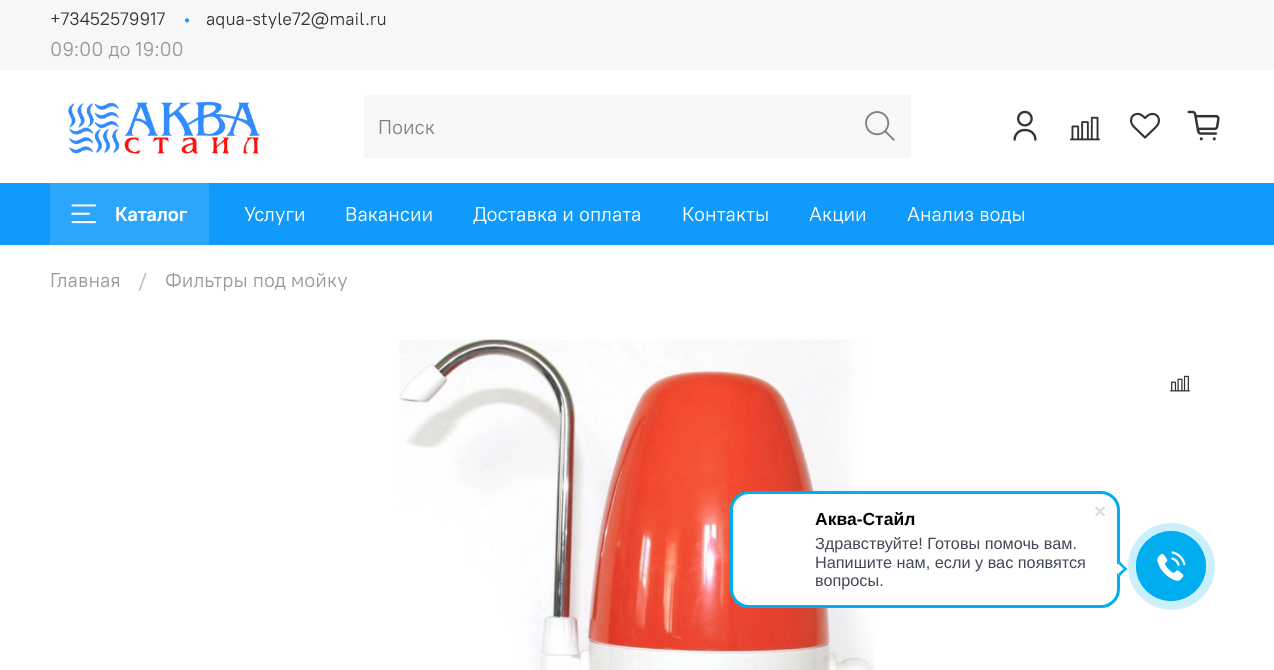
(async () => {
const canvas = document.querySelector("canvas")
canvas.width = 1274
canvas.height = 670
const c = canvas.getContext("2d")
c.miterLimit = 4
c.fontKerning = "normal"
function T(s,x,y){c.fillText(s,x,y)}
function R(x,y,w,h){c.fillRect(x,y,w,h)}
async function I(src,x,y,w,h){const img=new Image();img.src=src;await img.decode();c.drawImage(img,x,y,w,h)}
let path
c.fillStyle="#fff"
R(0,0,1274,670)
c.fillStyle="#f7f7f7"
R(0,0,1274,70)
c.font="18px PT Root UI"
c.fillStyle="#333"
T("+73452579917",50,25)
c.fillStyle="#109afc"
T("•",183,25)
c.fillStyle="#333"
T("aqua-style72@mail.ru",206,25)
c.font="20px PT Root UI"
c.fillStyle="#999"
T("09:00 до 19:00",50,56)
await I("1.png",68,101,192,53)
c.fillStyle="#f7f7f7"
R(364,95,547,63)
c.fillStyle="#808080"
T("Поиск",378,134)
await I("2.png",865,111,30,30)
await I("3.png",1013,110,24,31)
await I("4.png",1070,116,30,25)
await I("5.png",1130,112,30,27)
await I("6.png",1187,110,33,31)
c.fillStyle="#109afc"
R(0,183,1274,62)
c.fillStyle="#2ca6fd"
R(50,183,159,62)
await I("7.png",71,204,26,20)
c.font="bold 20px PT Root UI"
c.fillStyle="#fff"
T("Каталог",115,221)
c.font="20px PT Root UI"
T("Услуги",244,221)
T("Вакансии",345,221)
T("Доставка и оплата",473,221)
T("Контакты",682,221)
T("Акции",809,221)
T("Анализ воды",907,221)
c.fillStyle="#999"
T("Главная",50,287)
c.fillStyle="#b8b8b8"
T("/",138,287)
c.fillStyle="#999"
T("Фильтры под мойку",165,287)
await I("8.png",399,339,476,331)
await I("9.png",1170,375,20,17)
c.fillStyle="#fff"
c.beginPath()
c.roundRect(731.5,492.5,387,114,17.5)
c.fill()
c.strokeStyle="#00aeef"
c.lineWidth=3
c.stroke()
c.font="bold 17.5px Liberation Sans"
c.fillStyle="#000"
T("Аква-Стайл",815,525)
c.font="16.25px Liberation Sans"
c.fillStyle="#424956"
T("Здравствуйте! Готовы помочь вам.",815,549)
T("Напишите нам, если у вас появятся",815,568)
T("вопросы.",815,586)
await I("10.png",1095,506,11,11)
c.fillStyle="#fff"
path = new Path2D("M1113 569l7-7.5l7 7.5l-7 7z")
c.fill(path)
c.fillStyle="#00aeef"
path = new Path2D("M1118 563.5l2-2l7 7.5l-1.5 1.5z")
c.fill(path)
path = new Path2D("M1118 574l7.5-7l1.5 2l-7 7z")
c.fill(path)
c.fillStyle="#cceffc"
c.beginPath()
c.arc(1171.5,566.5,43.5,0,7)
c.fill()
c.beginPath()
c.arc(1171,566,34.5,0,7)
c.lineWidth=1
c.stroke()
c.fillStyle="#00aeef"
c.beginPath()
c.arc(1171,566,35,0,7)
c.fill()
await I("11.png",1157,551,29,30)
})()
